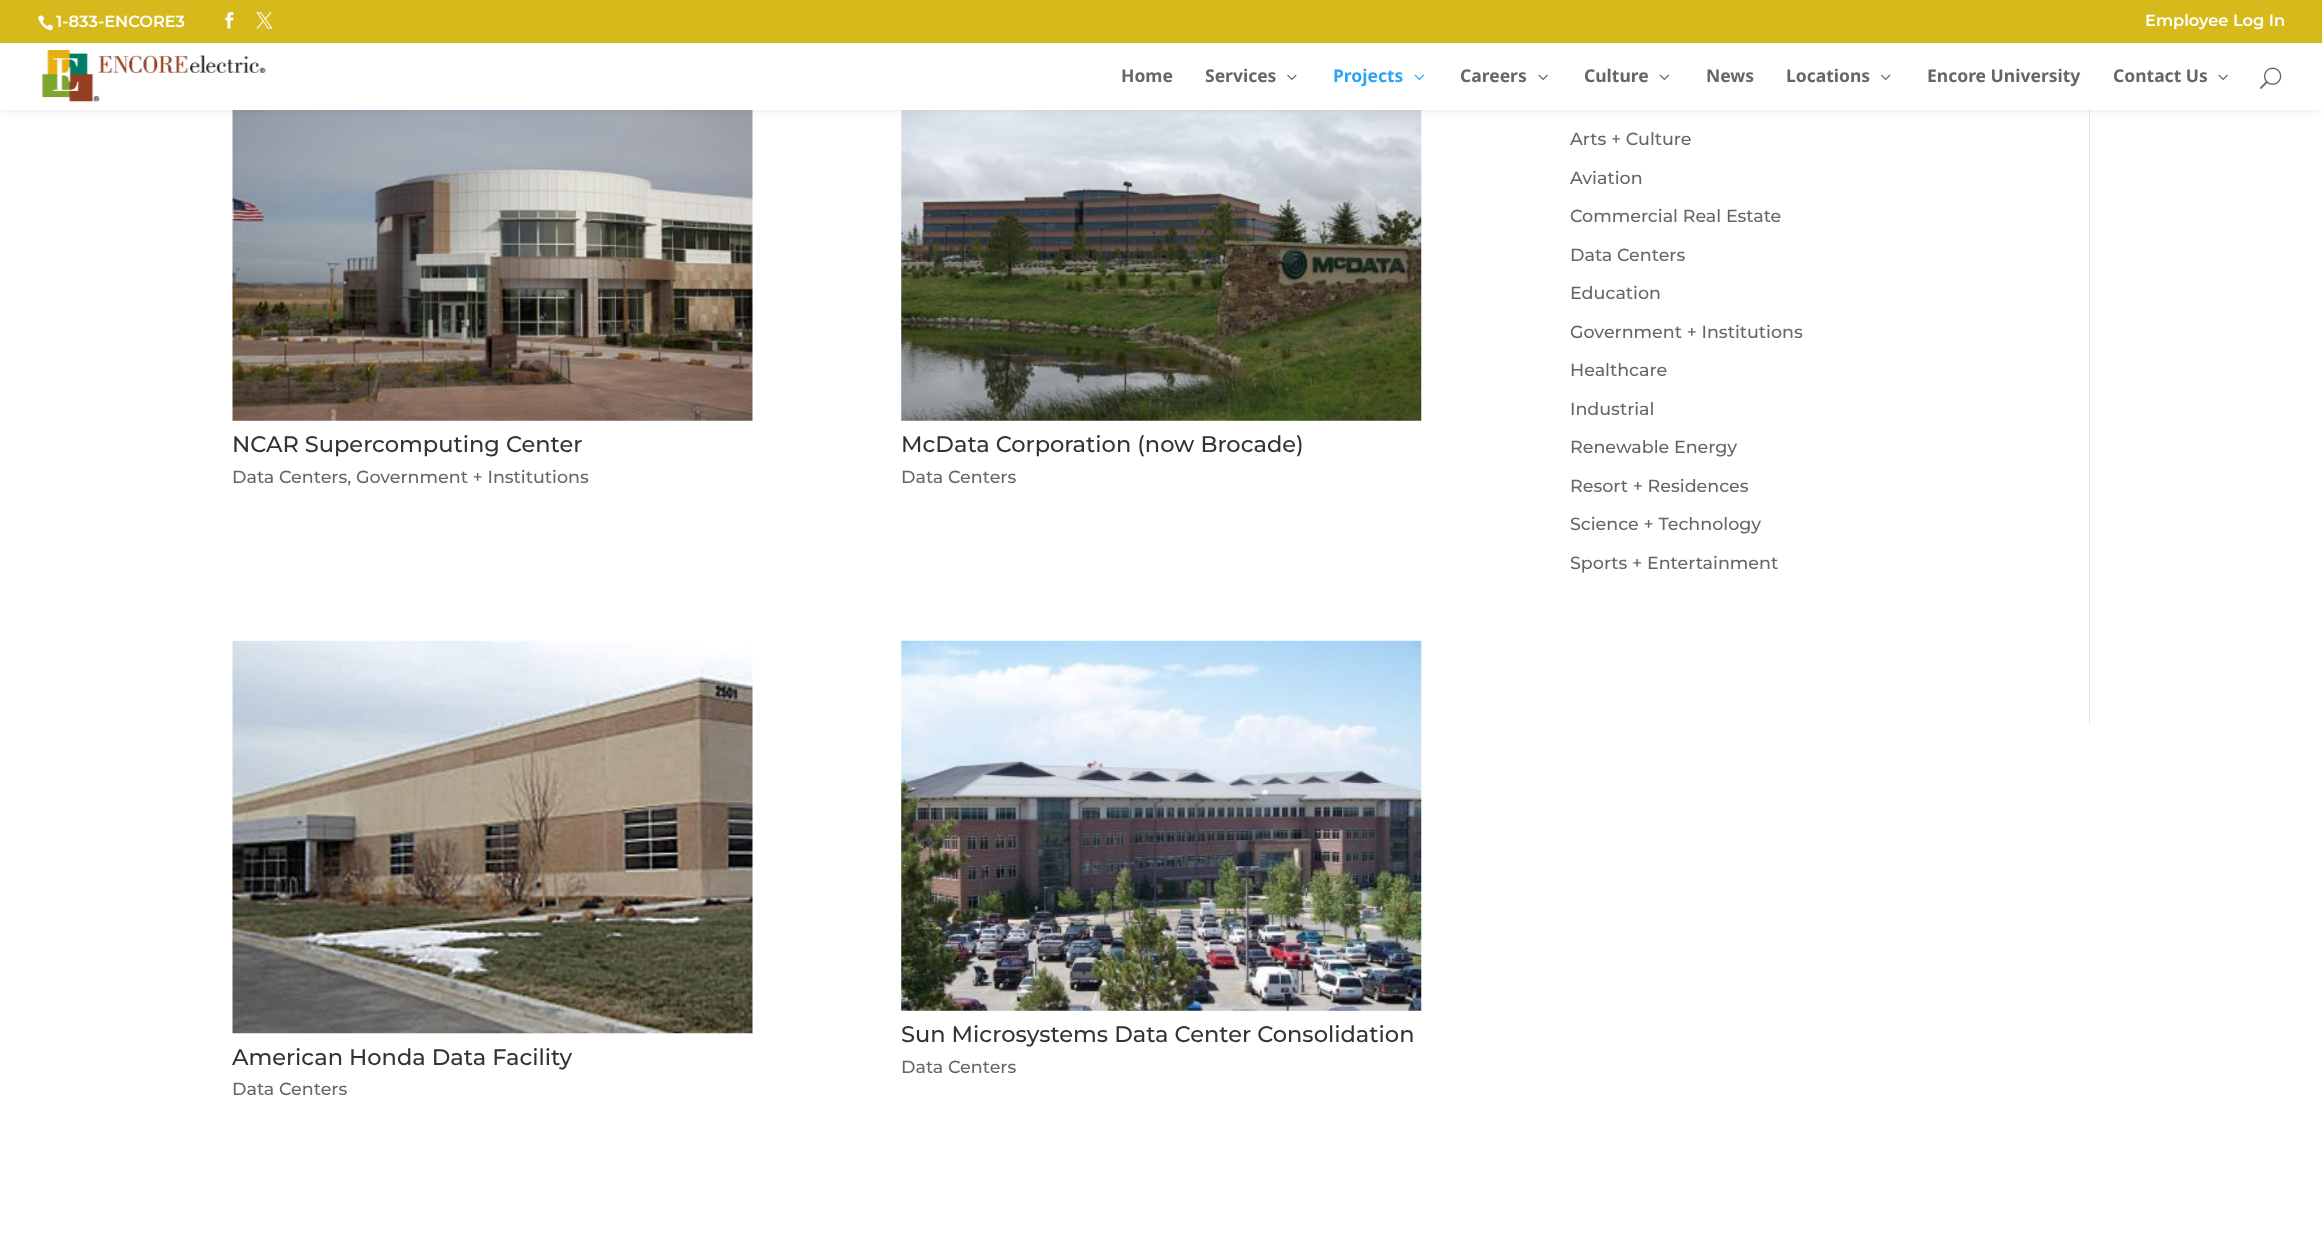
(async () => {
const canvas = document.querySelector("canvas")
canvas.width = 2322
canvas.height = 1242
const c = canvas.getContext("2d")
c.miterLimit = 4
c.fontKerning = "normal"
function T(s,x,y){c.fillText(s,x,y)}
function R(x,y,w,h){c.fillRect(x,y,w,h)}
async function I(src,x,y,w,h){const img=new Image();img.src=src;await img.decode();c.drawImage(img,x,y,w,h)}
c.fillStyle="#fff"
R(0,0,2322,1242)
c.fillStyle="#e6e6e6"
R(2089,110,1,615)
await I("11.png",232,110,521,311)
await I("12.png",901,110,521,311)
c.fillStyle="#0000001a"
c.filter="blur(4.5px)"
c.beginPath()
c.rect(0,43,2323,67)
c.fill()
c.filter="none"
c.fillStyle="#d6ba1b"
R(0,0,2322,43)
await I("1.png",38,15,15,16)
c.font="100 16.25px 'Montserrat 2'"
c.fillStyle="#fff"
T("1-833-ENCORE3",56,27)
await I("2.png",225,12,9,17)
await I("3.png",256,12,17,17)
T("Employee Log In",2145,26)
R(0,43,2322,67)
await I("4.png",42,50,224,52)
c.font="bold 17.5px Noto Sans"
c.fillStyle="#666"
T("Home",1121,82)
T("Services",1205,82)
await I("5.png",1287,74,10,6)
c.fillStyle="#2ea3f2"
T("Projects",1333,82)
await I("6.png",1414,74,10,6)
c.fillStyle="#666"
T("Careers",1460,82)
await I("7.png",1538,74,10,6)
T("Culture",1584,82)
await I("8.png",1659,74,10,6)
T("News",1706,82)
T("Locations",1786,82)
await I("9.png",1881,74,10,6)
T("Encore University",1927,82)
T("Contact Us",2113,82)
await I("7.png",2218,74,10,6)
await I("10.png",2260,67,22,22)
c.font="100 17.5px Montserrat"
T("Arts + Culture",1570,145)
T("Aviation",1570,184)
T("Commercial Real Estate",1570,222)
T("Data Centers",1570,261)
T("Education",1570,299)
T("Government + Institutions",1570,338)
T("Healthcare",1570,376)
T("Industrial",1570,415)
T("Renewable Energy",1570,453)
T("Resort + Residences",1570,492)
T("Science + Technology",1570,530)
T("Sports + Entertainment",1570,569)
c.font="100 22.5px Montserrat"
c.fillStyle="#333"
T("NCAR Supercomputing Center",232,452)
c.font="100 17.5px Montserrat"
c.fillStyle="#666"
T("Data Centers, Government + Institutions",232,483)
c.font="100 22.5px Montserrat"
c.fillStyle="#333"
T("McData Corporation (now Brocade)",901,452)
c.font="100 17.5px Montserrat"
c.fillStyle="#666"
T("Data Centers",901,483)
await I("13.png",232,640,521,394)
c.font="100 22.5px Montserrat"
c.fillStyle="#333"
T("American Honda Data Facility",232,1065)
c.font="100 17.5px Montserrat"
c.fillStyle="#666"
T("Data Centers",232,1095)
await I("14.png",901,640,521,371)
c.font="100 22.5px Montserrat"
c.fillStyle="#333"
T("Sun Microsystems Data Center Consolidation",901,1042)
c.font="100 17.5px Montserrat"
c.fillStyle="#666"
T("Data Centers",901,1073)
})()
